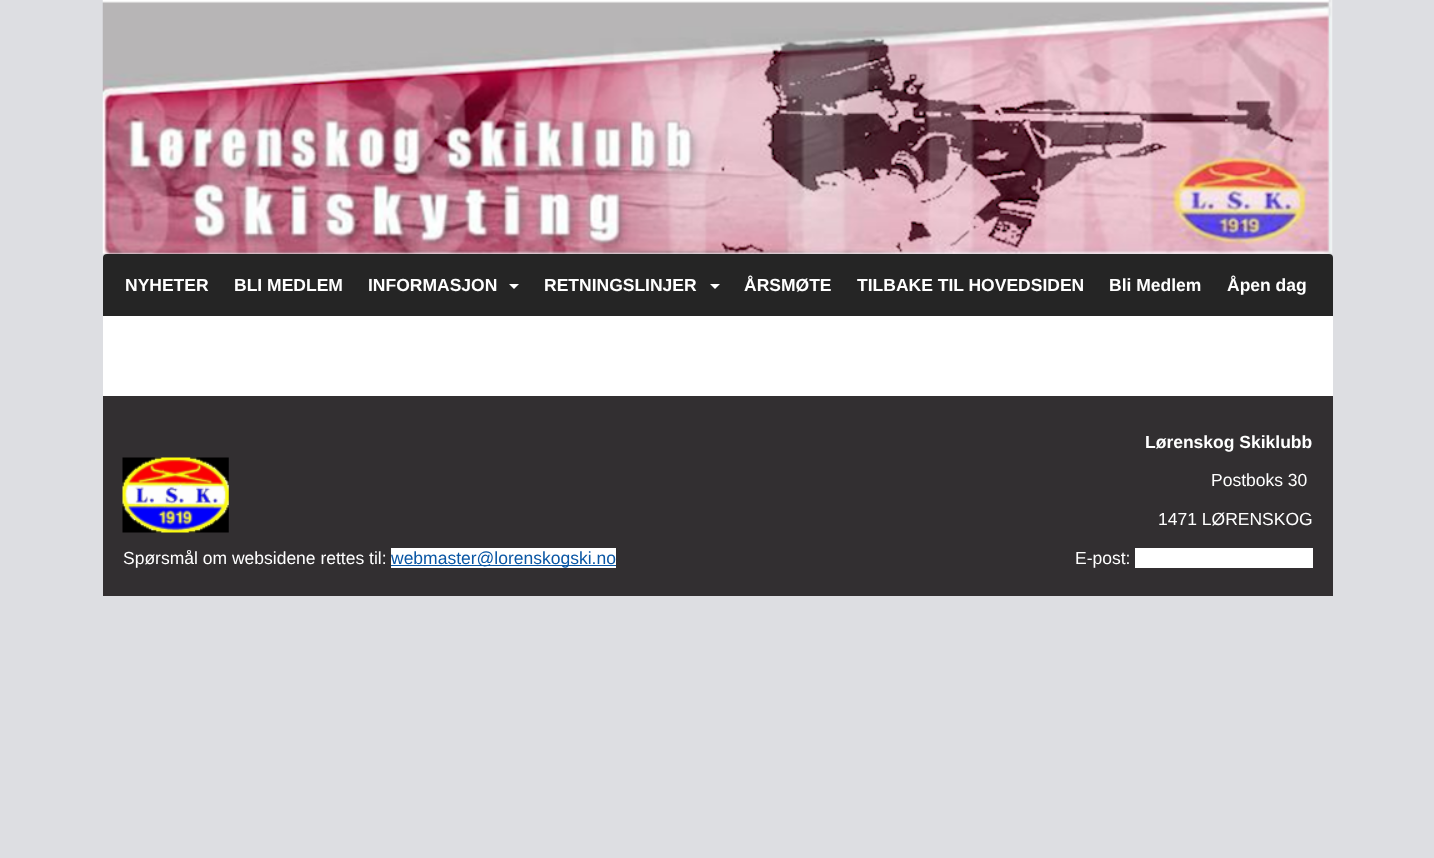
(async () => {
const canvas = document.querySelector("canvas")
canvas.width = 1434
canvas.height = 858
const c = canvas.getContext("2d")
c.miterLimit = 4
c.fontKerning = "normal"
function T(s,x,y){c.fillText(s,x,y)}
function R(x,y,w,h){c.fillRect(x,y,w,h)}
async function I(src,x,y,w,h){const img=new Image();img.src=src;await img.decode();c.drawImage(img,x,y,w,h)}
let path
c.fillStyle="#dddee2"
R(0,0,1434,858)
await I("1.png",102,0,1231,254)
c.fillStyle="#252525"
c.beginPath()
c.roundRect(103,254,1230,62,[4,4,0,0])
c.fill()
c.font="bold 17.5px Liberation Sans"
c.fillStyle="#fff"
T("NYHETER",125,291)
T("BLI MEDLEM",234,291)
T("INFORMASJON",368,291)
path = new Path2D("M509 284h10l-5 5z")
c.fill(path)
T("RETNINGSLINJER",544,291)
path = new Path2D("M710 284h10l-5 5z")
c.fill(path)
T("ÅRSMØTE",744,291)
T("TILBAKE TIL HOVEDSIDEN",857,291)
T("Bli Medlem",1109,291)
T("Åpen dag",1227,291)
R(103,316,1230,80)
c.fillStyle="#322f31"
R(103,396,1230,200)
await I("2.png",122,457,107,76)
c.font="17.5px Liberation Sans"
c.fillStyle="#fff"
T("Spørsmål om websidene rettes til:",123,564)
R(391,548,225,20)
c.fillStyle="#0956a4"
R(391,565,225,1)
T("webmaster@lorenskogski.no",391,564)
c.font="bold 17.5px Liberation Sans"
c.fillStyle="#fff"
T("Lørenskog Skiklubb",1145,448)
c.font="17.5px Liberation Sans"
T("Postboks 30",1211,486)
T("1471 LØRENSKOG",1158,525)
T("E-post:",1075,564)
R(1135,548,178,20)
})()
